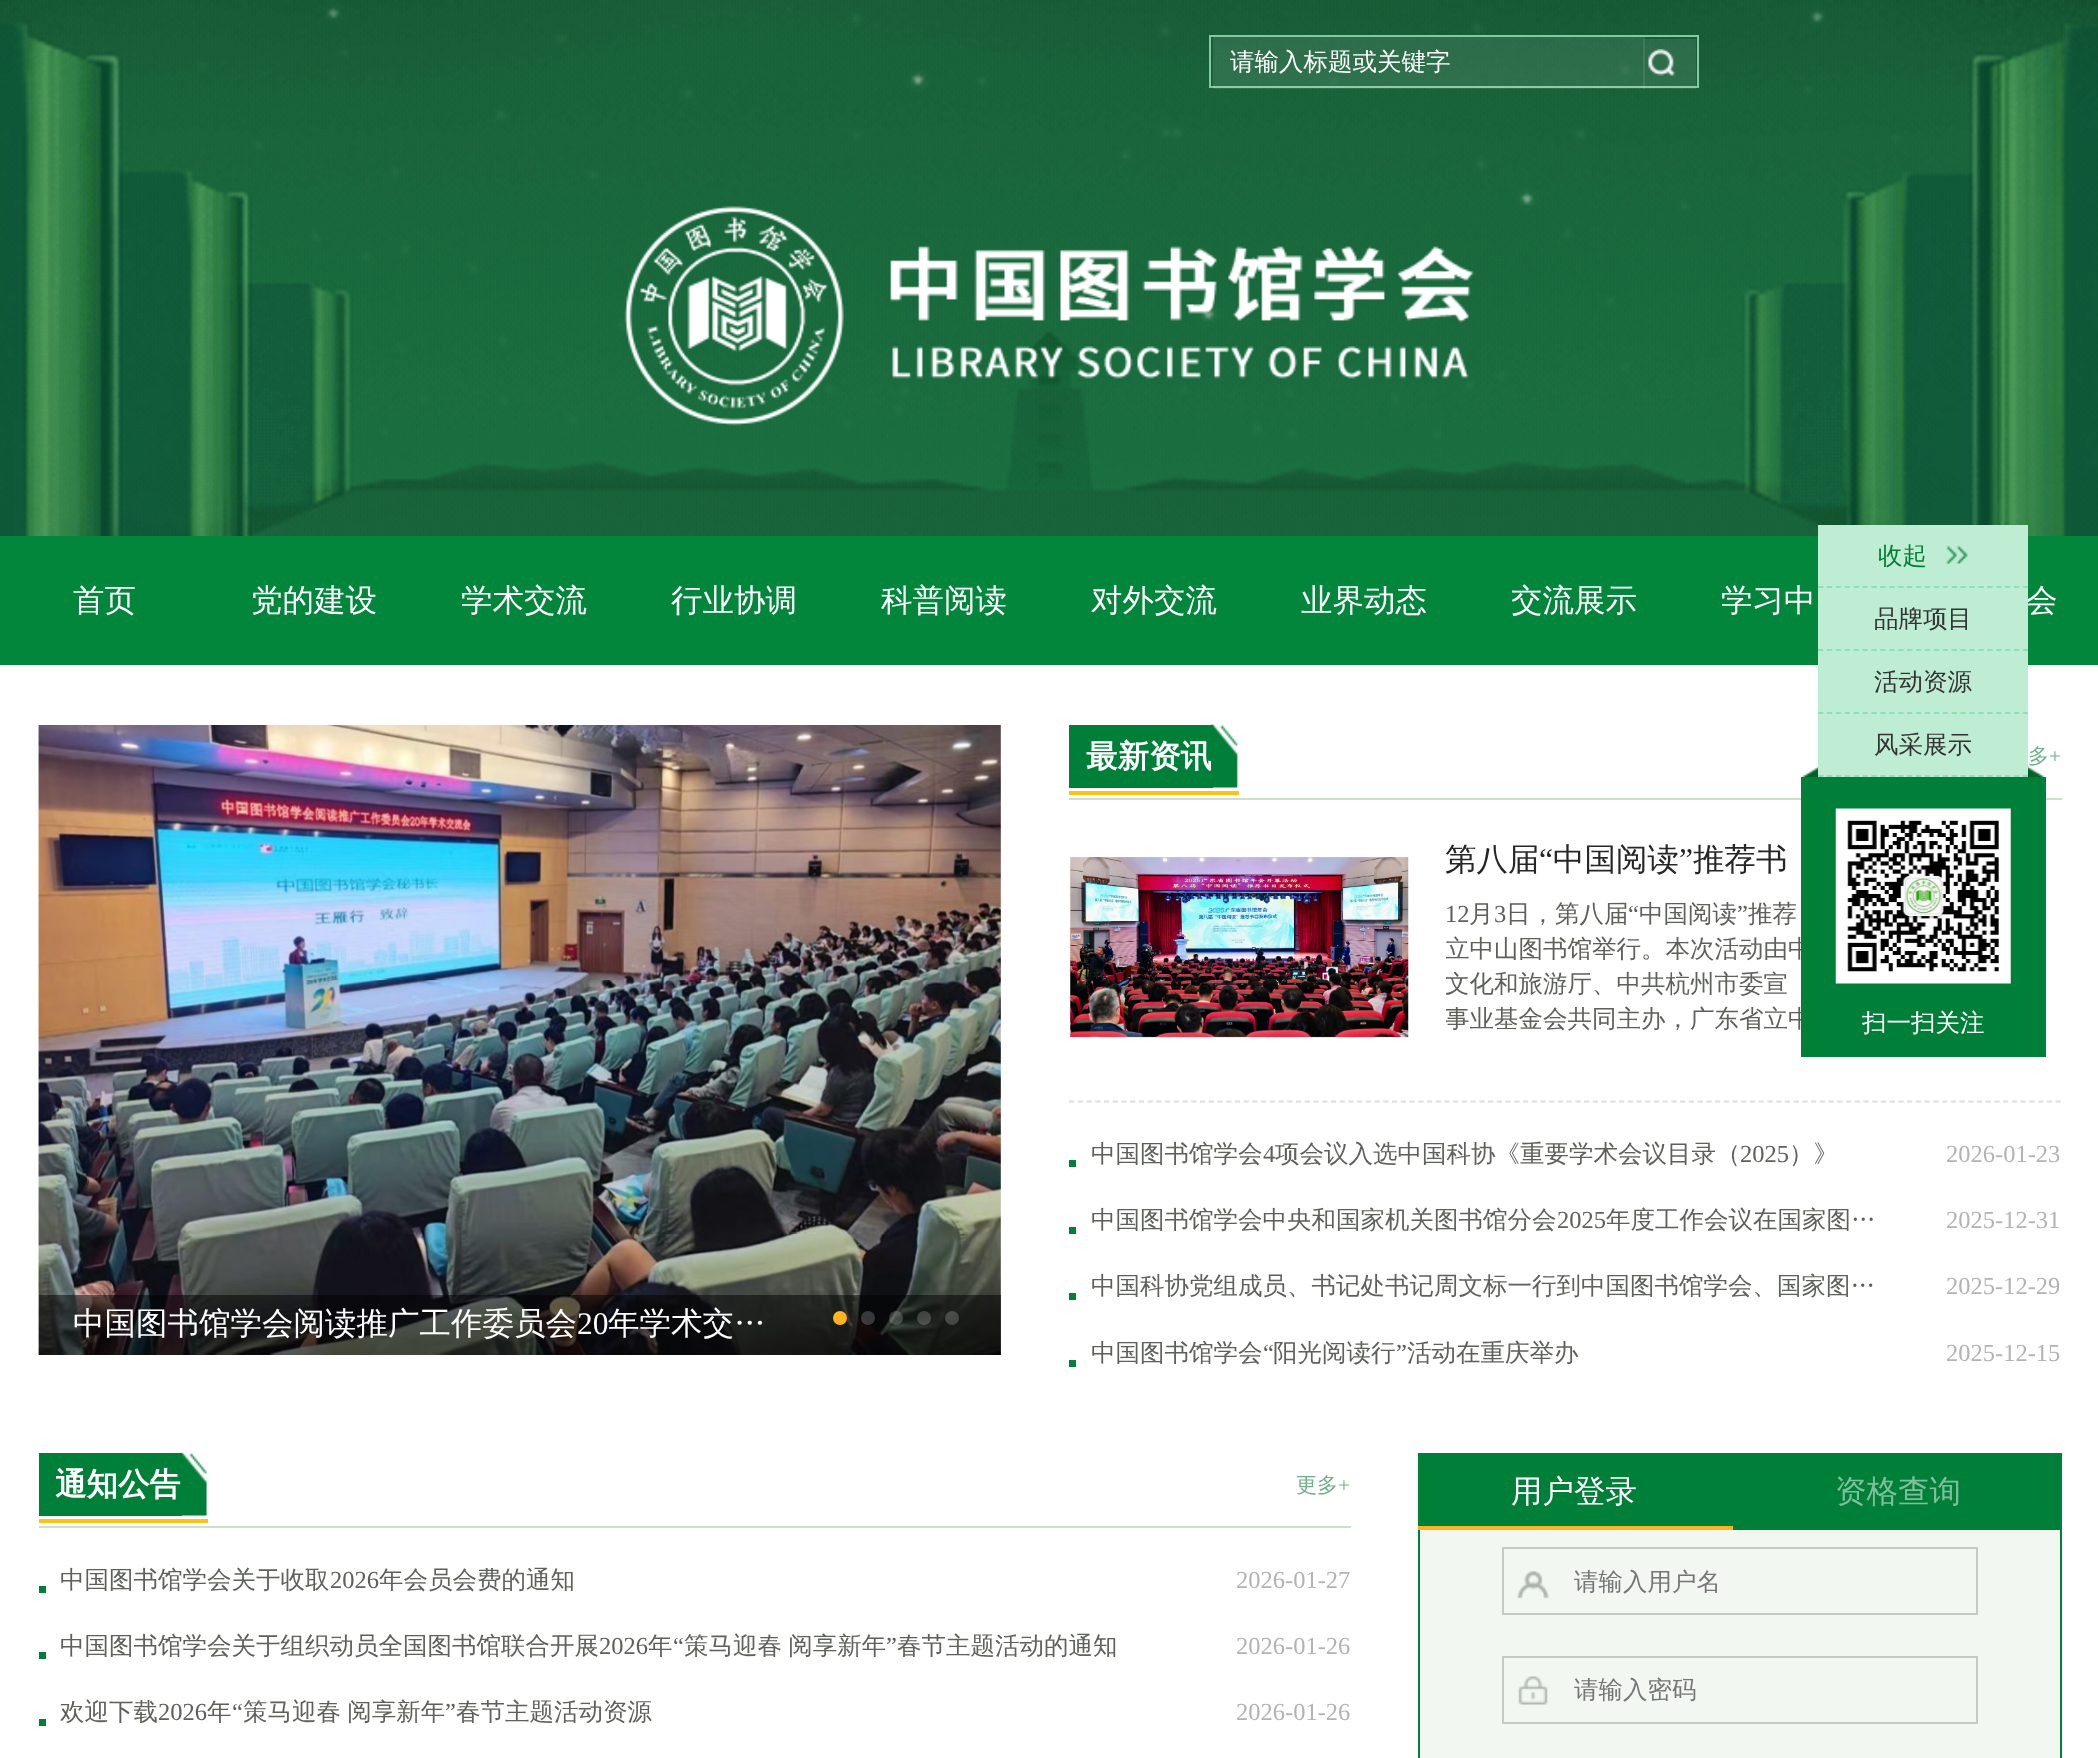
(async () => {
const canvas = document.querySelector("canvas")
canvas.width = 2098
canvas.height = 1758
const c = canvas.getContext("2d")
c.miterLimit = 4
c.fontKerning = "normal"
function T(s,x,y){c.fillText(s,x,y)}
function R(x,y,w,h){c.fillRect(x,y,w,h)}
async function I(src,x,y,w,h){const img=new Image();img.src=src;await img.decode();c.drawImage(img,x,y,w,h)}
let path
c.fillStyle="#fff"
R(0,0,2098,1758)
await I("1.png",0,0,2098,536)
c.strokeStyle="#83c8a1"
c.lineWidth=2
c.strokeRect(1210,36,488,51)
c.fillStyle="#f5f5f51a"
R(1213,37,432,52)
c.font="500 24.5px WenQuanYi Zen Hei"
c.fillStyle="#fff"
T("请输入标题或关键字",1230,70)
c.fillStyle="#f5f5f51a"
R(1643,39,53,50)
await I("2.png",1647,49,28,28)
await I("3.png",624,206,850,220)
c.fillStyle="#01863c"
R(0,536,2098,129)
c.font="500 31.5px WenQuanYi Zen Hei"
c.fillStyle="#fff"
T("首页",73,611)
T("党的建设",251,611)
T("学术交流",461,611)
T("行业协调",671,611)
T("科普阅读",881,611)
T("对外交流",1091,611)
T("业界动态",1301,611)
T("交流展示",1511,611)
T("学习中",1721,611)
T("会",2026,611)
await I("4.png",1801,766,244,11)
c.fillStyle="#bfedd3"
R(1818,525,210,252)
path = new Path2D("M1818 587h210")
c.strokeStyle="#89e2b0"
c.lineWidth=1.8
c.setLineDash([5.25,3.66])
c.stroke(path)
c.font="500 24.5px WenQuanYi Zen Hei"
c.fillStyle="#007f38"
T("收起",1878,564)
await I("5.png",1945,545,23,19)
path = new Path2D("M1818 650h210")
c.stroke(path)
c.fillStyle="#333"
T("品牌项目",1874,627)
path = new Path2D("M1818 713h210")
c.stroke(path)
T("活动资源",1874,690)
path = new Path2D("M1818 776h210")
c.stroke(path)
T("风采展示",1874,753)
c.fillStyle="#cde0cd"
R(1069,798,993,2)
c.save()
c.beginPath()
c.rect(1446,898,616,140)
c.clip()
c.fillStyle="#5e615b"
T("立中山图书馆举行。本次活动由中",1445,957)
T("事业基金会共同主办，广东省立中",1445,1027)
c.restore()
c.fillStyle="#007f38"
R(1801,777,245,280)
await I("6.png",1835,808,176,176)
c.fillStyle="#fff"
T("扫一扫关注",1862,1031)
await I("7.png",38,725,963,630)
c.fillStyle="#00000080"
R(39,1295,962,60)
c.font="500 31.5px WenQuanYi Zen Hei"
c.fillStyle="#fff"
T("中国图书馆学会阅读推广工作委员会",73,1334)
c.font="31.5px Liberation Serif"
T("20",577,1334)
c.font="500 31.5px WenQuanYi Zen Hei"
T("年学术交…",608,1334)
c.fillStyle="#ffb320"
c.beginPath()
c.arc(840,1318,7,0,7)
c.fill()
c.fillStyle="#ffffff33"
c.beginPath()
c.arc(868,1318,7,0,7)
c.fill()
c.beginPath()
c.arc(896,1318,7,0,7)
c.fill()
c.beginPath()
c.arc(924,1318,7,0,7)
c.fill()
c.beginPath()
c.arc(952,1318,7,0,7)
c.fill()
c.fillStyle="#007f38"
R(1069,725,144,63)
c.font="bold 31.5px WenQuanYi Zen Hei"
c.fillStyle="#fff"
T("最新资讯",1086,767)
await I("8.png",1211,724,27,64)
c.fillStyle="#ffc018"
R(1069,791,170,4)
c.font="500 21px WenQuanYi Zen Hei"
c.fillStyle="#6db08b"
T("多",2028,763)
c.font="21px Liberation Serif"
T("+",2049,763)
path = new Path2D("M1069 1101.5h992.5")
c.strokeStyle="#dfdede"
c.setLineDash([5.25,3.48])
c.stroke(path)
await I("9.png",1070,857,339,181)
c.font="500 31.5px WenQuanYi Zen Hei"
c.fillStyle="#262626"
T("第八届",1445,870)
c.font="31.5px Liberation Serif"
T("“",1539,870)
c.font="500 31.5px WenQuanYi Zen Hei"
T("中国阅读",1553,870)
c.font="31.5px Liberation Serif"
T("”",1679,870)
c.font="500 31.5px WenQuanYi Zen Hei"
T("推荐书",1693,870)
c.font="24.5px Liberation Serif"
c.fillStyle="#5e615b"
T("12",1445,922)
c.font="500 24.5px WenQuanYi Zen Hei"
T("月",1469,922)
c.font="24.5px Liberation Serif"
T("3",1494,922)
c.font="500 24.5px WenQuanYi Zen Hei"
T("日，第八届",1506,922)
c.font="24.5px Liberation Serif"
T("“",1628,922)
c.font="500 24.5px WenQuanYi Zen Hei"
T("中国阅读",1639,922)
c.font="24.5px Liberation Serif"
T("”",1737,922)
c.font="500 24.5px WenQuanYi Zen Hei"
T("推荐",1748,922)
c.save()
c.beginPath()
c.rect(1446,898,616,140)
c.clip()
T("文化和旅游厅、中共杭州市委宣",1445,992)
c.restore()
c.fillStyle="#007f38"
R(1069,1160,7,7)
c.fillStyle="#5e615b"
T("中国图书馆学会",1091,1162)
c.font="24.5px Liberation Serif"
T("4",1263,1162)
c.font="500 24.5px WenQuanYi Zen Hei"
T("项会议入选中国科协《重要学术会议目录（",1275,1162)
c.font="24.5px Liberation Serif"
T("2025",1740,1162)
c.font="500 24.5px WenQuanYi Zen Hei"
T("）》",1789,1162)
c.font="24.5px Liberation Serif"
c.fillStyle="#b3b3b3"
T("2026-01-23",1946,1162)
c.font="500 24.5px WenQuanYi Zen Hei"
c.fillStyle="#5e615b"
T("中国图书馆学会中央和国家机关图书馆分会",1091,1228)
c.font="24.5px Liberation Serif"
T("2025",1557,1228)
c.font="500 24.5px WenQuanYi Zen Hei"
T("年度工作会议在国家图…",1606,1228)
c.font="24.5px Liberation Serif"
c.fillStyle="#b3b3b3"
T("2025-12-31",1946,1228)
c.fillStyle="#007f38"
R(1069,1227,7,7)
c.font="500 24.5px WenQuanYi Zen Hei"
c.fillStyle="#5e615b"
T("中国科协党组成员、书记处书记周文标一行到中国图书馆学会、国家图…",1091,1294)
c.font="24.5px Liberation Serif"
c.fillStyle="#b3b3b3"
T("2025-12-29",1946,1294)
c.fillStyle="#007f38"
R(1069,1293,7,7)
c.font="500 24.5px WenQuanYi Zen Hei"
c.fillStyle="#5e615b"
T("中国图书馆学会",1091,1361)
c.font="24.5px Liberation Serif"
T("“",1263,1361)
c.font="500 24.5px WenQuanYi Zen Hei"
T("阳光阅读行",1273,1361)
c.font="24.5px Liberation Serif"
T("”",1396,1361)
c.font="500 24.5px WenQuanYi Zen Hei"
T("活动在重庆举办",1407,1361)
c.font="24.5px Liberation Serif"
c.fillStyle="#b3b3b3"
T("2025-12-15",1946,1361)
c.fillStyle="#007f38"
R(1069,1360,7,7)
c.fillStyle="#cde0cd"
R(39,1526,1312,2)
c.fillStyle="#007f38"
R(39,1453,143,63)
c.font="bold 31.5px WenQuanYi Zen Hei"
c.fillStyle="#fff"
T("通知公告",55,1495)
await I("10.png",180,1452,27,64)
c.fillStyle="#ffc018"
R(39,1519,169,4)
c.font="500 21px WenQuanYi Zen Hei"
c.fillStyle="#6db08b"
T("更多",1296,1492)
c.font="21px Liberation Serif"
T("+",1338,1492)
c.fillStyle="#007f38"
R(39,1586,7,7)
c.font="500 24.5px WenQuanYi Zen Hei"
c.fillStyle="#5e615b"
T("中国图书馆学会关于收取",60,1588)
c.font="24.5px Liberation Serif"
T("2026",330,1588)
c.font="500 24.5px WenQuanYi Zen Hei"
T("年会员会费的通知",379,1588)
c.font="24.5px Liberation Serif"
c.fillStyle="#b3b3b3"
T("2026-01-27",1236,1588)
c.fillStyle="#007f38"
R(39,1652,7,7)
c.font="500 24.5px WenQuanYi Zen Hei"
c.fillStyle="#5e615b"
T("中国图书馆学会关于组织动员全国图书馆联合开展",60,1654)
c.font="24.5px Liberation Serif"
T("2026",599,1654)
c.font="500 24.5px WenQuanYi Zen Hei"
T("年",648,1654)
c.font="24.5px Liberation Serif"
T("“",673,1654)
c.wordSpacing="-1px"
c.font="500 24.5px WenQuanYi Zen Hei"
T("策马迎春 阅享新年",684,1654)
c.wordSpacing="0px"
c.font="24.5px Liberation Serif"
T("”",886,1654)
c.font="500 24.5px WenQuanYi Zen Hei"
T("春节主题活动的通知",897,1654)
c.font="24.5px Liberation Serif"
c.fillStyle="#b3b3b3"
T("2026-01-26",1236,1654)
c.font="500 24.5px WenQuanYi Zen Hei"
c.fillStyle="#5e615b"
T("欢迎下载",60,1720)
c.font="24.5px Liberation Serif"
T("2026",158,1720)
c.font="500 24.5px WenQuanYi Zen Hei"
T("年",207,1720)
c.font="24.5px Liberation Serif"
T("“",232,1720)
c.wordSpacing="-1px"
c.font="500 24.5px WenQuanYi Zen Hei"
T("策马迎春 阅享新年",243,1720)
c.wordSpacing="0px"
c.font="24.5px Liberation Serif"
T("”",445,1720)
c.font="500 24.5px WenQuanYi Zen Hei"
T("春节主题活动资源",456,1720)
c.font="24.5px Liberation Serif"
c.fillStyle="#b3b3b3"
T("2026-01-26",1236,1720)
c.fillStyle="#007f38"
R(39,1719,7,7)
R(1418,1453,644,77)
c.fillStyle="#ffb320"
R(1418,1526,315,4)
c.font="500 31.5px WenQuanYi Zen Hei"
c.fillStyle="#fff"
T("用户登录",1511,1502)
c.fillStyle="#80bf9c"
T("资格查询",1835,1502)
c.fillStyle="#f2f7f2"
R(1420,1530,640,228)
c.fillStyle="#007f38"
R(2060,1530,2,228)
R(1418,1530,2,228)
c.strokeStyle="#c2ccc2"
c.lineWidth=2
c.setLineDash([])
c.strokeRect(1503,1548,474,66)
await I("11.png",1517,1571,33,28)
c.font="500 24.5px WenQuanYi Zen Hei"
c.fillStyle="#757575"
T("请输入用户名",1574,1590)
c.strokeRect(1503,1657,474,66)
await I("12.png",1518,1676,30,29)
T("请输入密码",1574,1698)
})()
